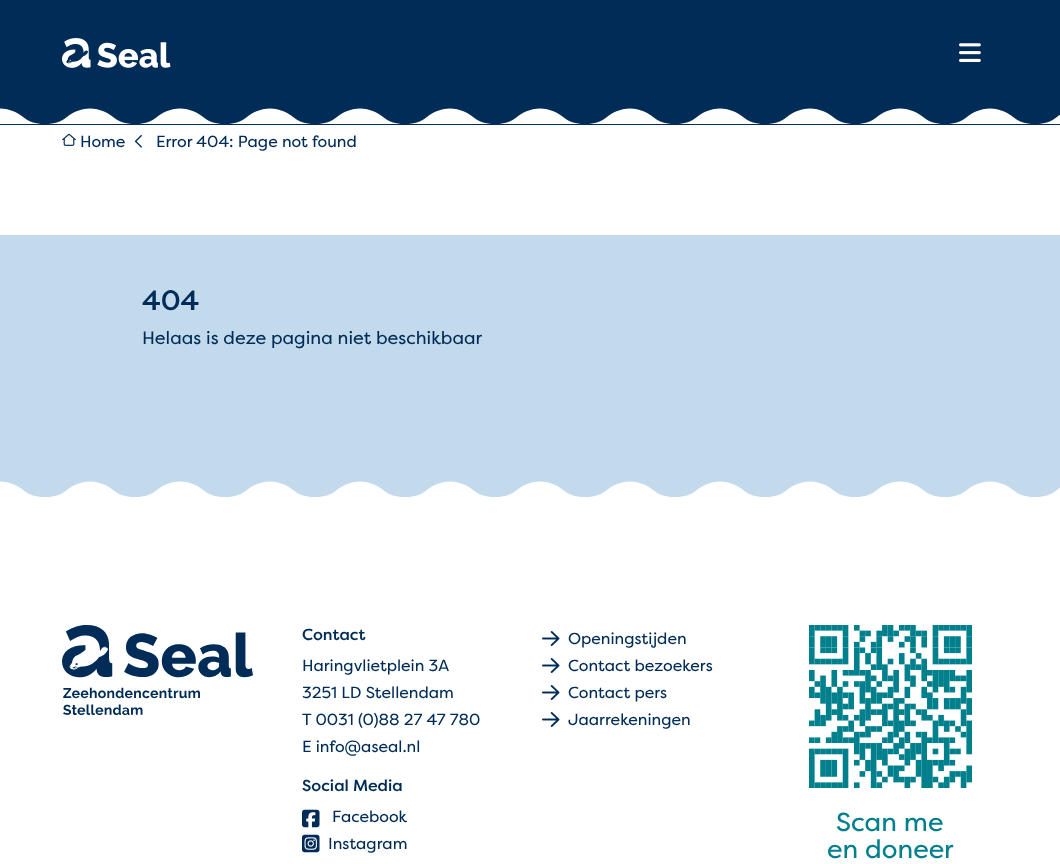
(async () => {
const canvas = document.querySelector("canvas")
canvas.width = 1060
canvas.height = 864
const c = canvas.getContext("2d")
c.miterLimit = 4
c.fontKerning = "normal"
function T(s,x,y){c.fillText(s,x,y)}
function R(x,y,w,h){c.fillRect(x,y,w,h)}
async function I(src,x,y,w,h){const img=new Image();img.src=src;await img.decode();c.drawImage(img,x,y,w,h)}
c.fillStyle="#fff"
R(0,0,1060,864)
c.fillStyle="#002c57"
R(0,0,1060,106)
await I("1.png",62,38,109,30)
await I("2.png",959,43,22,19)
await I("3.png",0,106,1060,19)
await I("4.png",62,133,14,13)
c.font="16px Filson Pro"
T("Home",80,147)
await I("5.png",134,135,8,13)
T("Error 404: Page not found",156,147)
c.fillStyle="#c3daed"
R(0,235,1060,244)
c.font="500 28px Filson Pro"
c.fillStyle="#002c57"
T("404",142,310)
c.font="18px Filson Pro"
T("Helaas is deze pagina niet beschikbaar",142,344)
await I("6.png",0,479,1060,18)
await I("7.png",62,625,191,90)
c.font="500 16px Filson Pro"
T("Contact",302,640)
c.font="16px Filson Pro"
T("Haringvlietplein 3A",302,671)
T("3251 LD Stellendam",302,698)
T("T 0031 (0)88 27 47 780",302,725)
T("E info@aseal.nl",302,752)
c.font="500 16px Filson Pro"
T("Social Media",302,791)
await I("8.png",302,809,18,19)
c.font="16px Filson Pro"
T("Facebook",332,822)
await I("9.png",302,834,18,19)
T("Instagram",328,849)
await I("10.png",542,631,18,15)
T("Openingstijden",568,644)
await I("10.png",542,658,18,15)
T("Contact bezoekers",568,671)
await I("10.png",542,685,18,15)
T("Contact pers",568,698)
await I("10.png",542,712,18,15)
T("Jaarrekeningen",568,725)
await I("11.png",809,625,163,163)
c.font="26px Filson Pro"
c.fillStyle="#007f8d"
T("Scan me",836,831)
T("en doneer",827,858)
})()
